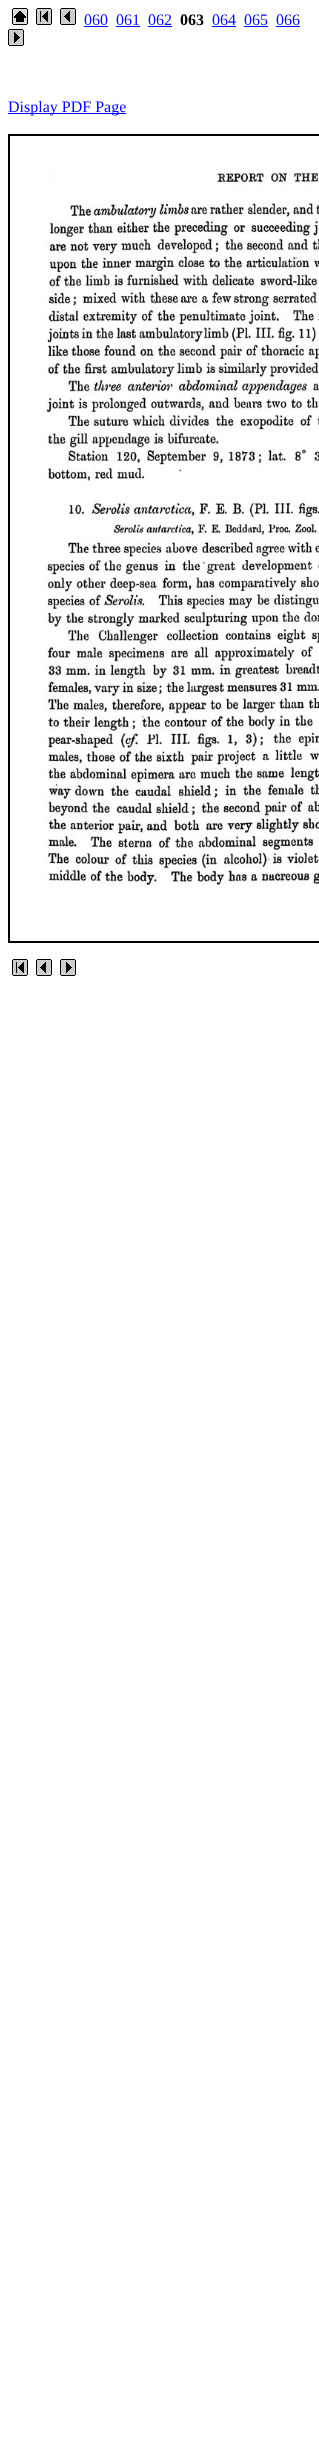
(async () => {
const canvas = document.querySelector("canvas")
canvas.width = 319
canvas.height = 2437
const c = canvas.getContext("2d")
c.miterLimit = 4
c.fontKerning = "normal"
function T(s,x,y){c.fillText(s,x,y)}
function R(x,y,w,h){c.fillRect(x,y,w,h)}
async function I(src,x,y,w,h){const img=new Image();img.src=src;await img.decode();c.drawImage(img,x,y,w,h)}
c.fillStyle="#fff"
R(0,0,319,2437)
await I("1.png",12,8,16,17)
await I("2.png",36,8,16,17)
await I("3.png",60,8,16,17)
c.font="16px Liberation Serif"
c.fillStyle="#00f"
T("060",84,25)
R(84,26,24,1)
T("061",116,25)
R(116,26,24,1)
T("062",148,25)
R(148,26,24,1)
c.font="bold 16px Liberation Serif"
c.fillStyle="#000"
T("063",180,25)
c.font="16px Liberation Serif"
c.fillStyle="#00f"
T("064",212,25)
R(212,26,24,1)
T("065",244,25)
R(244,26,24,1)
T("066",276,25)
R(276,26,24,1)
await I("4.png",8,29,16,17)
R(8,113,118,1)
T("Display PDF Page",8,112)
c.strokeStyle="#000"
c.lineWidth=2
c.strokeRect(9,135,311,807)
await I("5.png",46,172,273,716)
await I("2.png",12,959,16,17)
await I("3.png",36,959,16,17)
await I("4.png",60,959,16,17)
})()
